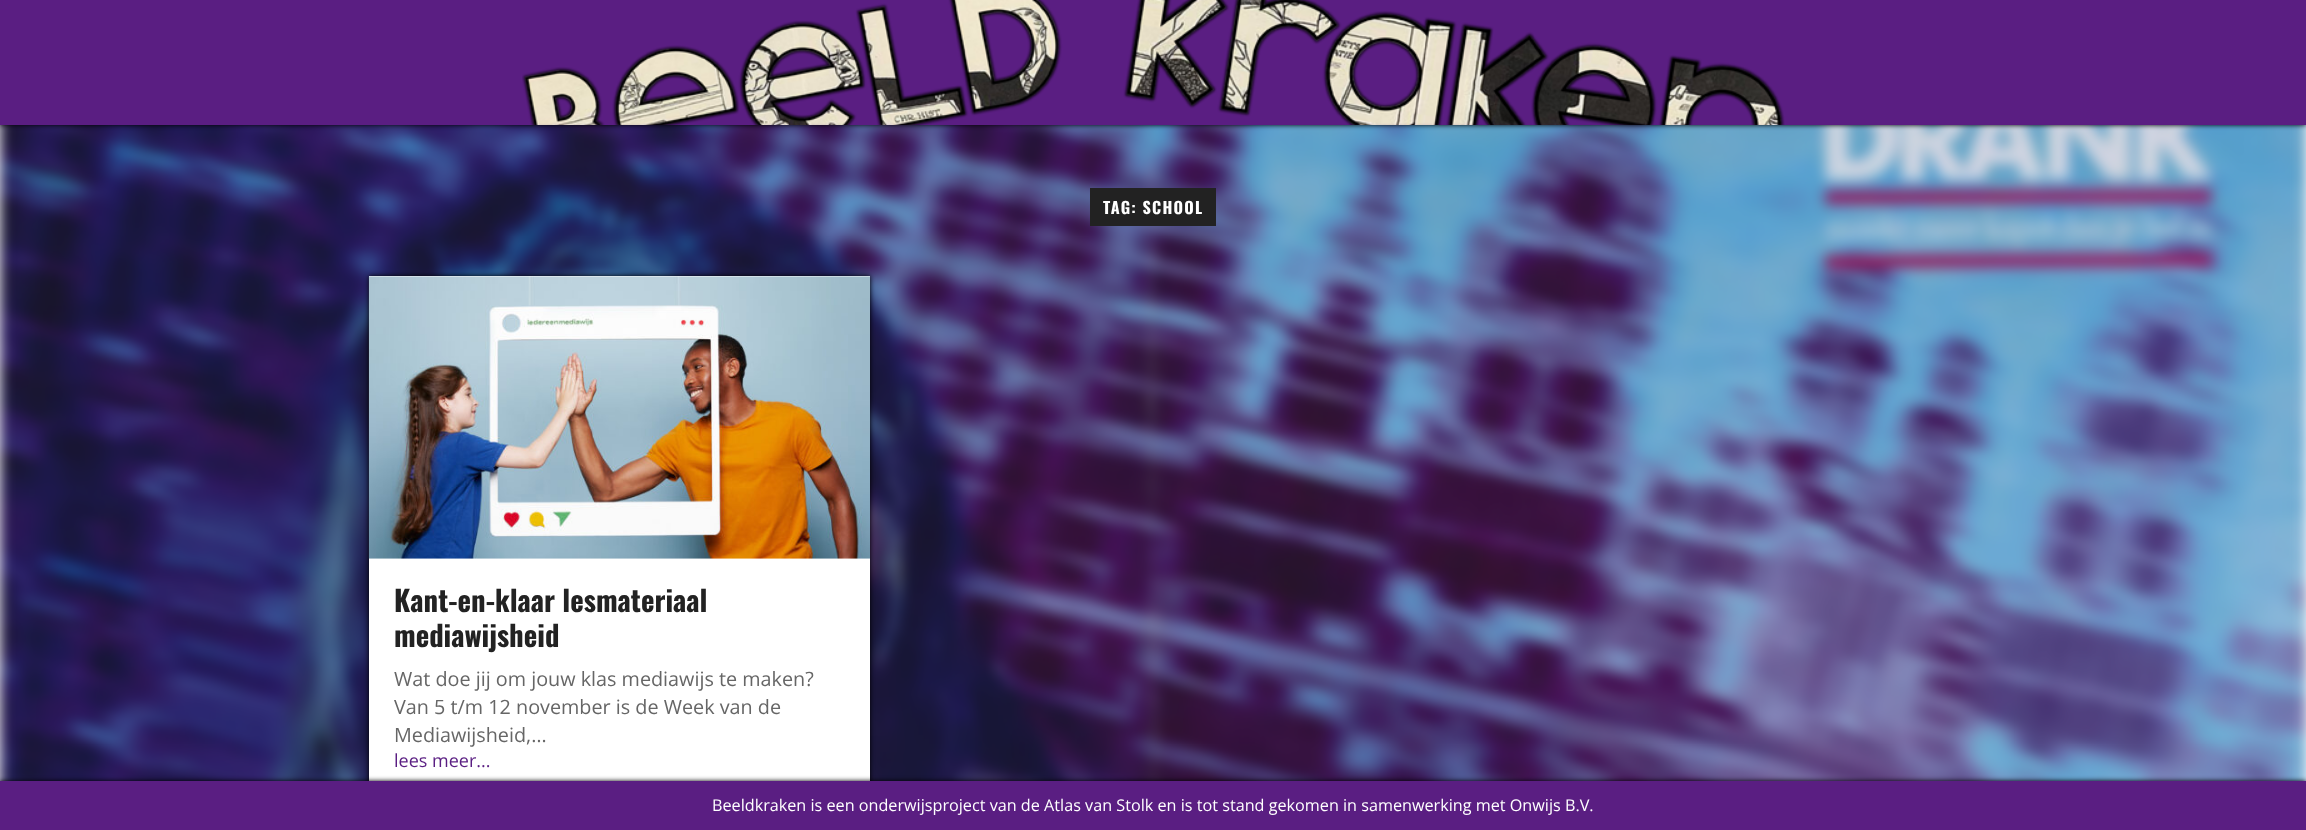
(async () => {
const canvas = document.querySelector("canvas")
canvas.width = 2306
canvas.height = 830
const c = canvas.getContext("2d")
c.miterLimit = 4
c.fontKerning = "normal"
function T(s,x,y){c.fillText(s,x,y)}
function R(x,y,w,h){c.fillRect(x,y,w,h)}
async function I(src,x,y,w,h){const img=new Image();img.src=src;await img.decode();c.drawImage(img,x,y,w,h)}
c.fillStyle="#fff"
R(0,0,2306,830)
await I("2.png",0,125,2306,656)
c.fillStyle="#000"
c.filter="blur(2.5px)"
c.beginPath()
c.rect(0,0,2306,125)
c.fill()
c.filter="none"
c.fillStyle="#5a1e82"
R(0,0,2306,125)
await I("1.png",522,0,1263,125)
c.fillStyle="#222"
R(1090,188,126,38)
c.letterSpacing="1.25px"
c.font="bold 16.2px Oswald"
c.fillStyle="#fff"
T("TAG: SCHOOL",1103,214)
c.fillStyle="#000"
c.filter="blur(2.5px)"
c.beginPath()
c.rect(369,276,501,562)
c.fill()
c.filter="none"
c.fillStyle="#fff"
R(369,276,501,505)
await I("3.png",368,276,502,283)
c.letterSpacing="0px"
c.font="bold 28.75px Oswald"
c.fillStyle="#222"
T("Kant-en-klaar lesmateriaal",394,612)
T("mediawijsheid",394,647)
c.font="19.8px Open Sans"
c.fillStyle="#666"
T("Wat doe jij om jouw klas mediawijs te maken?",394,686)
T("Van 5 t/m 12 november is de Week van de",394,714)
T("Mediawijsheid,…",394,742)
c.font="18px Open Sans"
c.fillStyle="#5a1e82"
T("lees meer...",394,767)
c.fillStyle="#000"
c.filter="blur(2.5px)"
c.beginPath()
c.rect(0,781,2306,49)
c.fill()
c.filter="none"
c.fillStyle="#5a1e82"
R(0,781,2306,49)
c.font="16.2px Open Sans"
c.fillStyle="#fff"
T("Beeldkraken is een onderwijsproject van de Atlas van Stolk en is tot stand gekomen in samenwerking met Onwijs B.V.",712,811)
})()
